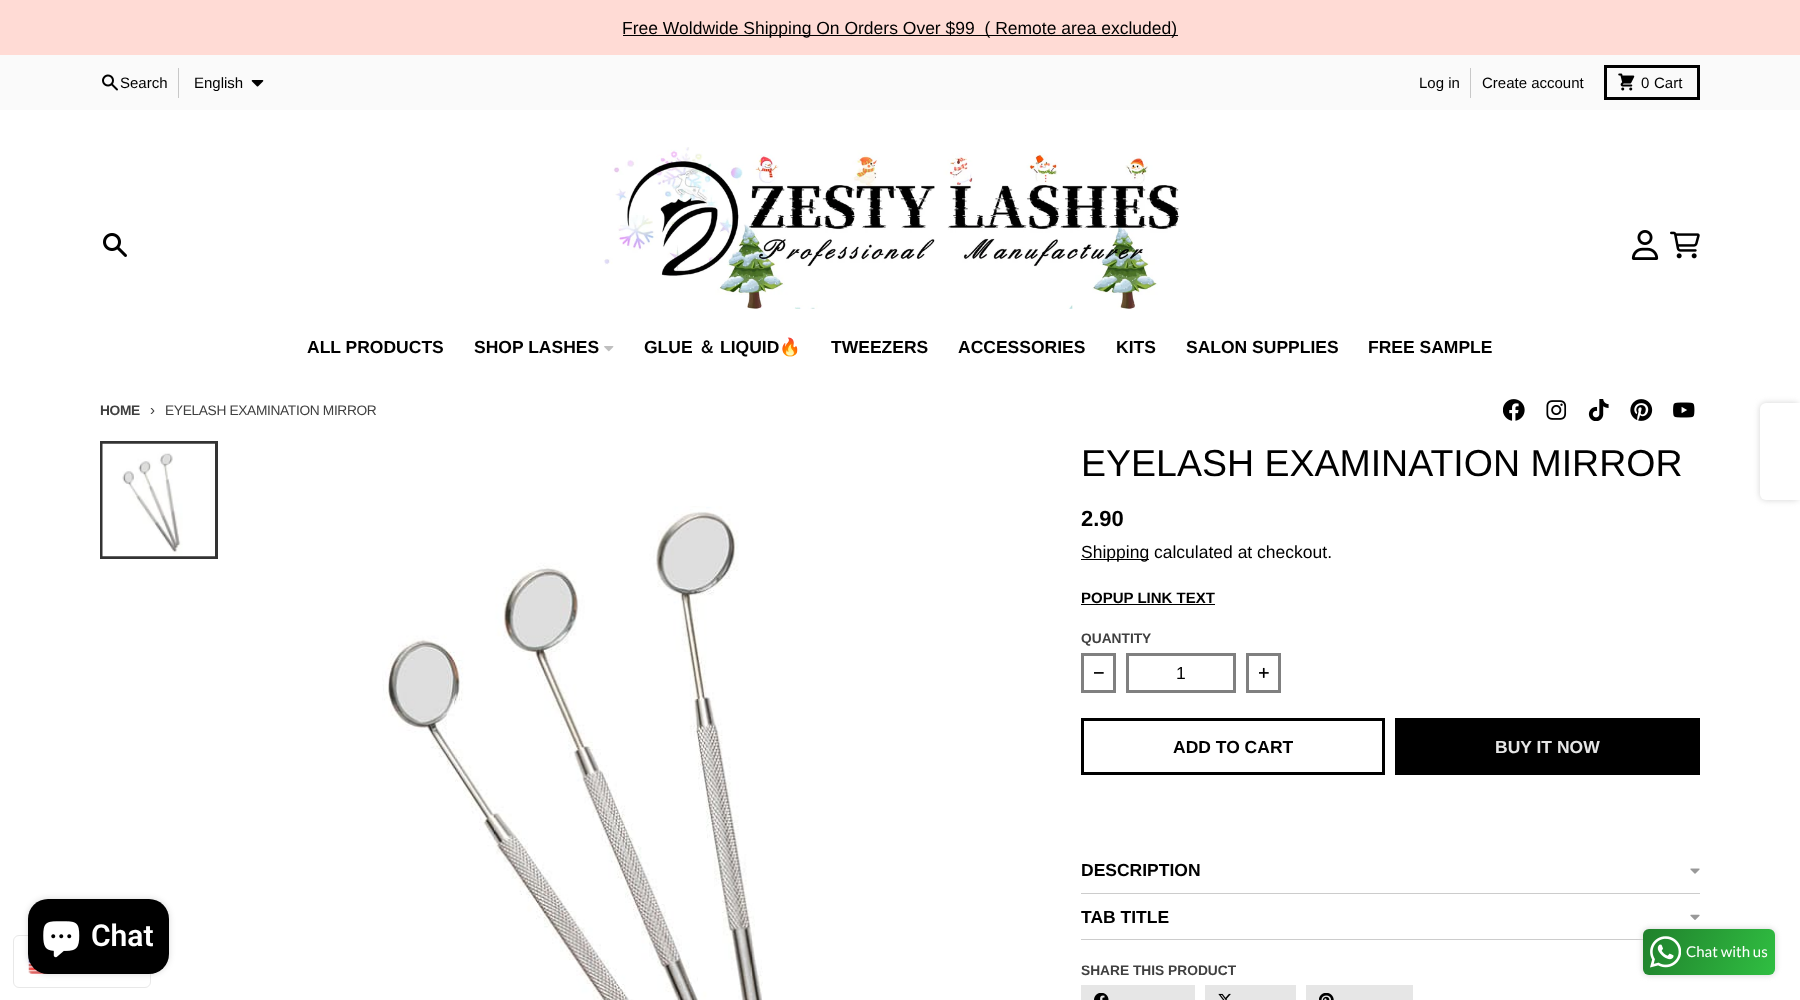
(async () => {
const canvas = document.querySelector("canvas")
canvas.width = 1800
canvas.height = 1000
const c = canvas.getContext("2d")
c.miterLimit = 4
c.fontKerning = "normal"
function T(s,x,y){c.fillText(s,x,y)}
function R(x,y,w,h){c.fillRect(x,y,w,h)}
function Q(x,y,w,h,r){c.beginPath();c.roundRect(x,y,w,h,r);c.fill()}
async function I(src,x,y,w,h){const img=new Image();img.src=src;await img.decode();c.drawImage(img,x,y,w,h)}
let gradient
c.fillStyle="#ffdbd5"
R(0,0,1800,1000)
c.fillStyle="#000"
R(623,35,555,1)
c.font="17.5px Arimo"
T("Free Woldwide Shipping On Orders Over $99  ( Remote area excluded)",622,34)
c.fillStyle="#fafafa"
R(0,55,1800,55)
await I("1.png",102,74,16,17)
c.font="15px Arimo"
c.fillStyle="#000"
T("Search",120,88)
c.fillStyle="#c8c8c8"
R(178,68,1,30)
c.fillStyle="#000"
T("English",194,88)
await I("2.png",251,80,13,7)
T("Log in",1419,88)
c.fillStyle="#c8c8c8"
R(1470,68,1,30)
c.fillStyle="#000"
T("Create account",1482,88)
c.strokeStyle="#000"
c.lineWidth=3
c.strokeRect(1605.5,66.5,93,32)
await I("3.png",1618,73,17,18)
T("0",1641,88)
T("Cart",1654,88)
c.fillStyle="#fff"
R(0,110,1800,890)
await I("4.png",103,233,24,24)
await I("5.png",1631,230,28,30)
await I("6.png",1670,231,30,28)
await I("7.png",603,147,577,162)
c.font="bold 17.5px Arimo"
c.fillStyle="#000"
T("ALL PRODUCTS",307,353)
T("SHOP LASHES",474,353)
await I("8.png",604,346,10,6)
T("GLUE",644,353)
c.font="bold 17.5px WenQuanYi Zen Hei"
T("＆",698,353)
c.font="bold 17.5px Arimo"
T("LIQUID",720,353)
c.font="bold 17.5px Noto Color Emoji"
T("🔥",779,353)
c.font="bold 17.5px Arimo"
T("TWEEZERS",831,353)
T("ACCESSORIES",958,353)
T("KITS",1116,353)
T("SALON SUPPLIES",1186,353)
T("FREE SAMPLE",1368,353)
c.letterSpacing="-0.35px"
c.font="bold 13.75px Arimo"
c.fillStyle="#404040"
T("HOME",100,415)
c.font="15px Arimo"
T("›",150,415)
c.font="13.75px Arimo"
T("EYELASH EXAMINATION MIRROR",165,415)
await I("9.png",1503,399,22,22)
await I("10.png",1546,400,21,20)
await I("11.png",1588,399,21,22)
await I("12.png",1630,399,23,22)
await I("13.png",1673,402,22,16)
c.strokeStyle="#333"
c.strokeRect(101.5,442.5,115,115)
await I("14.png",102,443,113,114)
await I("15.png",382,506,381,494)
c.letterSpacing="0px"
c.font="37.5px Arimo"
c.fillStyle="#000"
T("EYELASH EXAMINATION MIRROR",1081,476)
c.font="bold 22px Arimo"
T("2.90",1081,526)
R(1081,559,68,1)
c.font="17.5px Arimo"
T("Shipping calculated at checkout.",1081,558)
c.font="bold 15px Arimo"
T("POPUP LINK TEXT",1081,603)
R(1081,604,134,1)
c.font="bold 13.75px Arimo"
c.fillStyle="#404040"
T("QUANTITY",1081,643)
c.strokeStyle="#808080"
c.strokeRect(1082.5,654.5,32,37)
await I("16.png",1094,672,10,2)
c.strokeRect(1127.5,654.5,107,37)
c.font="17.5px Arimo"
c.fillStyle="#000"
T("1",1176,679)
c.strokeRect(1247.5,654.5,32,37)
await I("17.png",1259,667,10,11)
c.strokeStyle="#000"
c.strokeRect(1082.5,719.5,301,54)
c.font="bold 17.5px Arimo"
T("ADD TO CART",1173,753)
R(1395,718,305,57)
c.fillStyle="#e6e6e6"
T("BUY IT NOW",1495,753)
c.fillStyle="#ccc"
R(1081,893,619,1)
c.fillStyle="#000"
T("DESCRIPTION",1081,876)
await I("18.png",1690,868,10,6)
c.fillStyle="#ccc"
R(1081,939,562,1)
c.fillStyle="#000"
T("TAB TITLE",1081,923)
await I("19.png",1690,914,10,6)
c.font="bold 13.75px Arimo"
c.fillStyle="#404040"
T("SHARE THIS PRODUCT",1081,975)
c.fillStyle="#e6e6e6"
R(1081,985,114,15)
await I("20.png",1094,993,15,7)
R(1205,985,91,15)
await I("21.png",1218,993,13,7)
R(1306,985,107,15)
await I("22.png",1319,993,15,7)
c.fillStyle="#d3d3d3"
c.filter="blur(3px)"
c.beginPath()
c.roundRect(1760,403,40,97,6)
c.fill()
c.filter="none"
c.fillStyle="#fff"
c.beginPath()
c.roundRect(1760,403,40,97,[6,0,0,6])
c.fill()
c.beginPath()
c.roundRect(13.5,935.5,137,52,5.5)
c.strokeStyle="#e8e8e8"
c.lineWidth=1
c.stroke()
await I("24.png",28,954,20,20)
c.fillStyle="#00000026"
c.filter="blur(3px)"
c.beginPath()
c.roundRect(28,899,141,75,20)
c.fill()
c.filter="none"
c.fillStyle="#000"
Q(28,899,141,75,20)
await I("23.png",43,921,37,37)
c.font="600 30px Roboto"
c.fillStyle="#fff"
T("Chat",91,946)
c.fillStyle="#d3d3d3"
c.filter="blur(3px)"
c.beginPath()
c.roundRect(1643,929,132,46,6)
c.fill()
c.filter="none"
gradient = c.createLinearGradient(1644,925,1774,979)
gradient.addColorStop(0,"#20802c")
gradient.addColorStop(0,"#20802c")
gradient.addColorStop(1,"#30bf42")
c.fillStyle = gradient
Q(1643,929,132,46,6)
await I("25.png",1650,936,31,32)
c.font="15px Lato"
c.fillStyle="#fff"
T("Chat with us",1686,957)
})()
